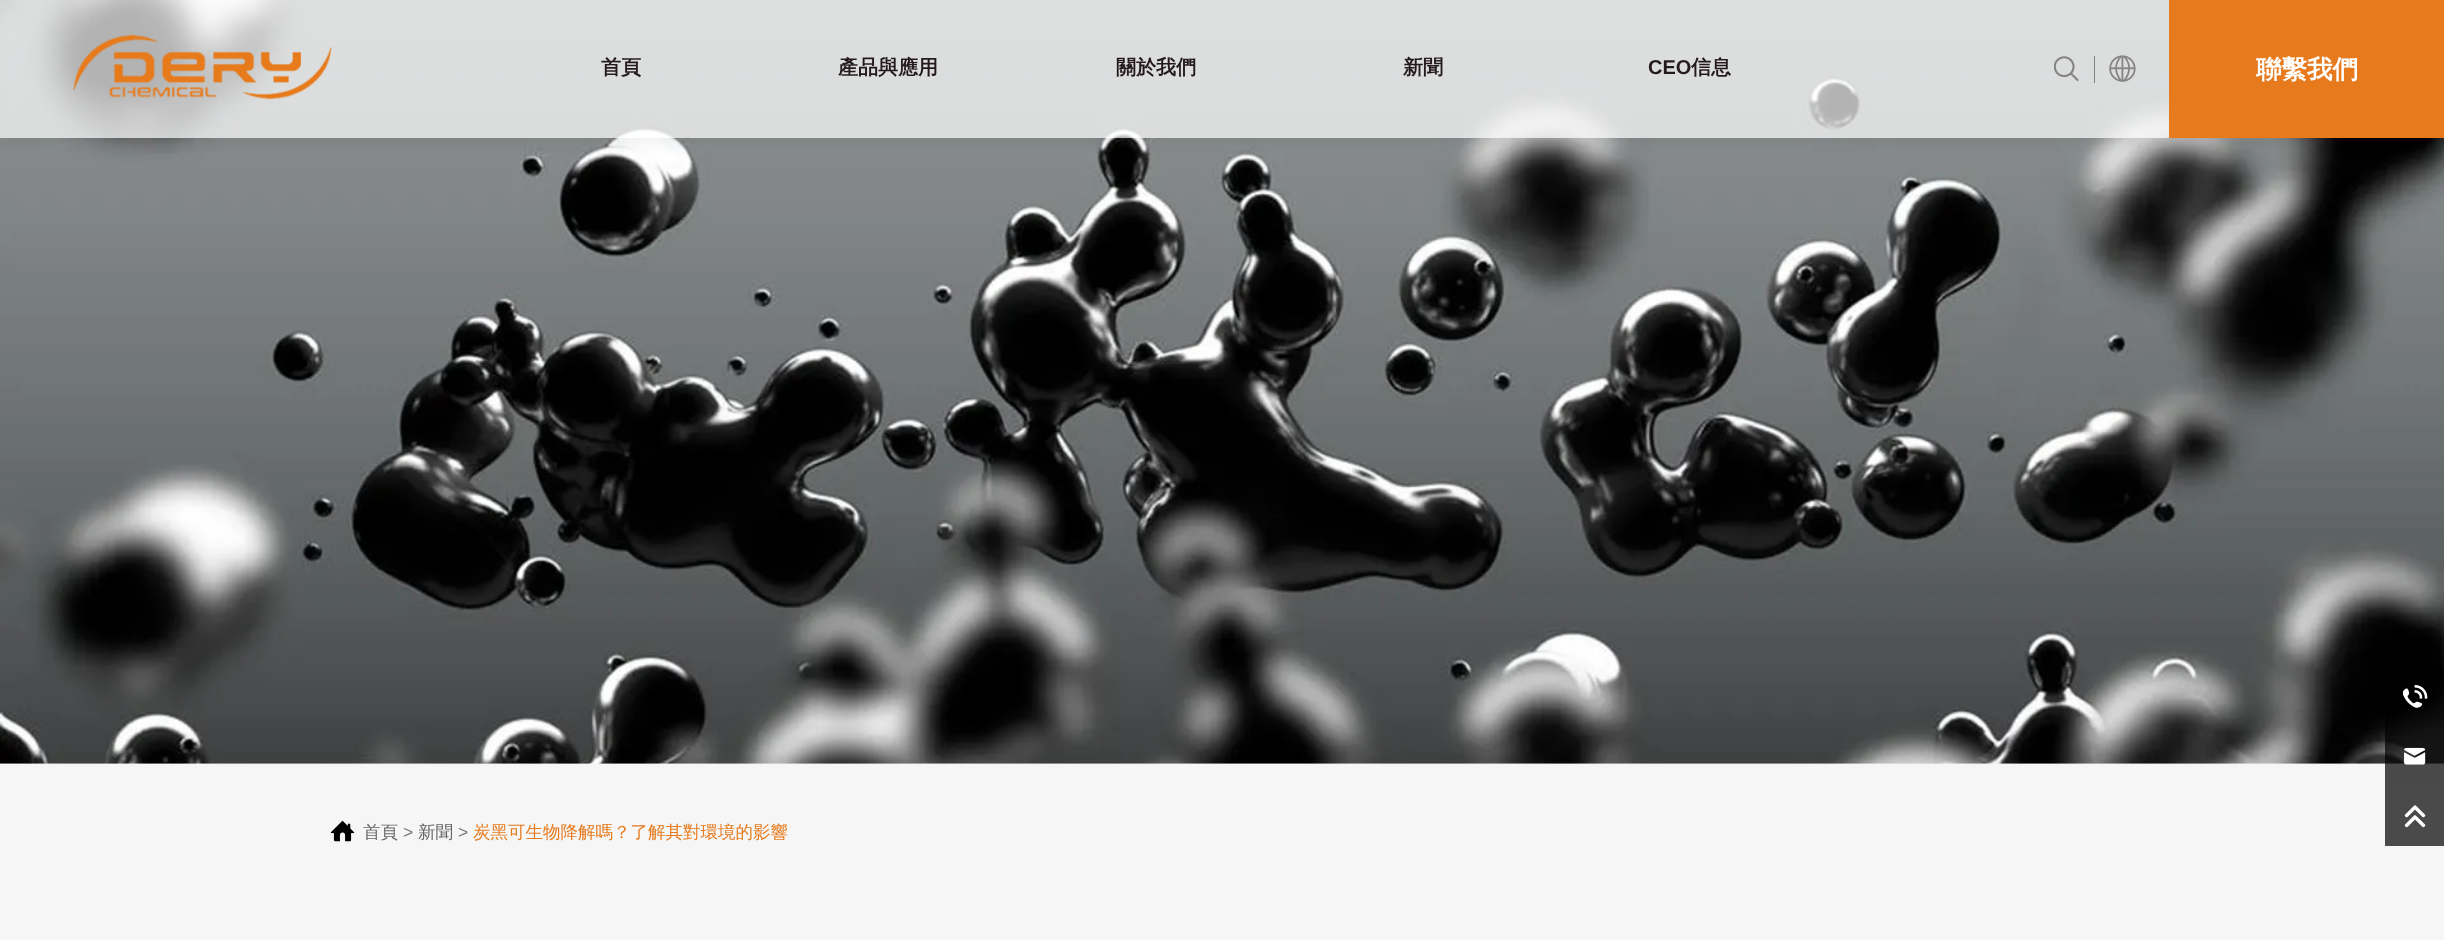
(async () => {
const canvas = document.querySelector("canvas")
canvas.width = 2444
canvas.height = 940
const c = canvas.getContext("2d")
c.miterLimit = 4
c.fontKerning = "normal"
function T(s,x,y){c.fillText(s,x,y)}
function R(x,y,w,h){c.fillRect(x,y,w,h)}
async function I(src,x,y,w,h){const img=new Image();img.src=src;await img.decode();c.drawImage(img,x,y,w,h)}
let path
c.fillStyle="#f6f6f6"
R(0,0,2444,940)
await I("4.png",0,0,2444,764)
c.save()
path = new Path2D("M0 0h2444v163h-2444zm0 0h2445v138h-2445z")
c.clip(path,"evenodd")
c.fillStyle="#0000000d"
c.filter="blur(6px)"
c.beginPath()
c.rect(0,6,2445,138)
c.fill()
c.filter="none"
c.restore()
c.fillStyle="#ffffffb3"
R(0,0,2169,138)
await I("1.png",73,34,259,66)
c.font="bold 20px WenQuanYi Zen Hei"
c.fillStyle="#251a1b"
T("首頁",601,74)
T("產品與應用",838,74)
T("關於我們",1116,74)
T("新聞",1403,74)
c.font="bold 20px Liberation Sans"
T("CEO",1648,74)
c.font="bold 20px WenQuanYi Zen Hei"
T("信息",1691,74)
await I("2.png",2054,56,25,25)
c.fillStyle="#838383"
R(2094,56,1,27)
await I("3.png",2109,55,27,27)
c.fillStyle="#e77a1c"
R(2169,0,275,138)
c.font="bold 25.5px WenQuanYi Zen Hei"
c.fillStyle="#fff"
T("聯繫我們",2256,78)
await I("5.png",330,820,25,22)
c.font="500 17.5px WenQuanYi Zen Hei"
c.fillStyle="#666"
T("首頁",363,838)
c.font="17.5px Liberation Sans"
c.fillStyle="#777"
T(">",403,838)
c.font="500 17.5px WenQuanYi Zen Hei"
c.fillStyle="#666"
T("新聞",418,838)
c.font="17.5px Liberation Sans"
c.fillStyle="#777"
T(">",458,838)
c.font="500 17.5px WenQuanYi Zen Hei"
c.fillStyle="#e77a1c"
T("炭黑可生物降解嗎？了解其對環境的影響",473,838)
c.fillStyle="#000000b3"
R(2385,666,59,60)
await I("6.png",2403,685,25,23)
R(2385,726,59,60)
await I("7.png",2404,747,22,18)
c.fillStyle="#4a4a4a"
R(2385,786,59,60)
await I("8.png",2404,805,22,23)
})()
